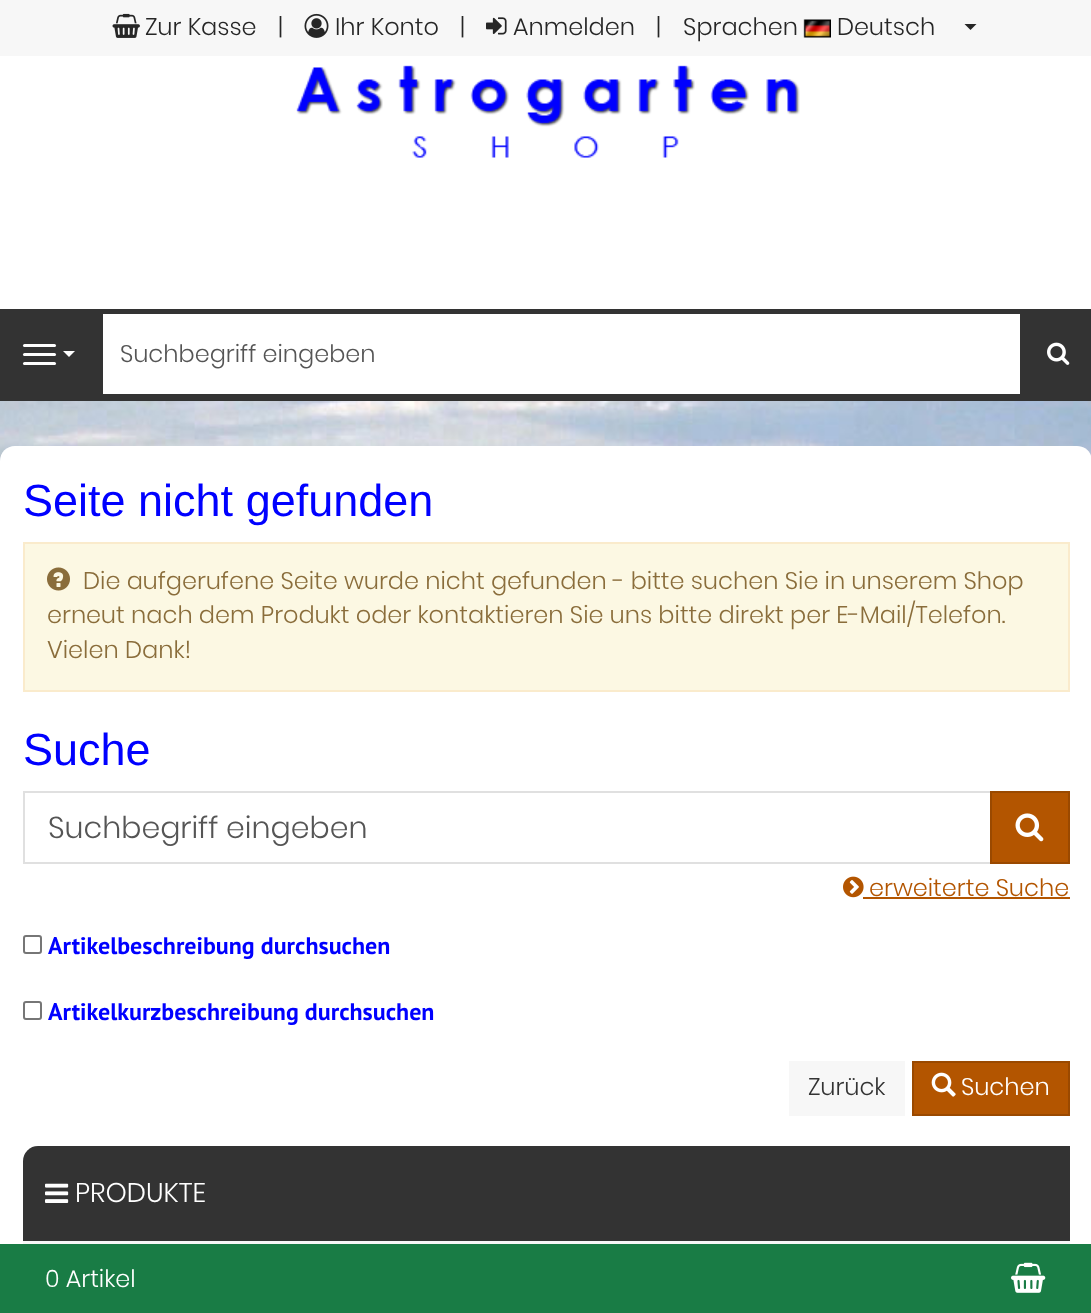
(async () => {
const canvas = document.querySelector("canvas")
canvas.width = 1091
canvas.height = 1313
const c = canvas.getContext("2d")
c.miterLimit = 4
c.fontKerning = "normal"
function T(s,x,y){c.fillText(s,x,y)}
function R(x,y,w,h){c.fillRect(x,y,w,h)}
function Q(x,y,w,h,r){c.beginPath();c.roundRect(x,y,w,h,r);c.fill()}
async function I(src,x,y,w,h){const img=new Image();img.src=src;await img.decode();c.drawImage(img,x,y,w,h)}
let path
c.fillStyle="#fff"
R(0,0,1091,1313)
await I("1.png",0,401,1091,60)
c.fillStyle="#f7f7f7"
R(0,0,1091,56)
await I("2.png",112,13,28,25)
c.font="300 24px Poppins"
c.fillStyle="#262626"
T("Zur Kasse",145,35)
T("|",278,35)
await I("3.png",304,13,25,25)
T("Ihr Konto",335,35)
T("|",460,35)
await I("4.png",486,17,21,18)
T("Anmelden",513,35)
T("|",656,35)
T("Sprachen",683,35)
await I("5.png",803,19,28,19)
T("Deutsch",837,35)
path = new Path2D("M964.5 24h12l-6 6z")
c.fill(path)
await I("6.png",296,65,504,93)
c.fillStyle="#333"
R(0,309,1091,92)
c.fillStyle="#fff"
Q(23,344,33,3,1.5)
Q(23,353,33,3,1.5)
Q(23,362,33,3,1.5)
path = new Path2D("M63 351h12l-6 6z")
c.fill(path)
R(103,314,917,80)
c.fillStyle="#555"
T("Suchbegriff eingeben",120,362)
await I("7.png",1047,342,23,23)
c.fillStyle="#fff"
path = new Path2D("M15 446h1062c8.5 0 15 6.5 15 15v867h-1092v-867c0-8.5 6.5-15 15-15z")
c.fill(path)
c.font="45px Liberation Sans"
c.fillStyle="#00f"
T("Seite nicht gefunden",23,516)
c.fillStyle="#fcf8e3"
c.beginPath()
c.rect(24,543,1045,148)
c.fill()
c.strokeStyle="#faebcc"
c.lineWidth=2
c.stroke()
await I("8.png",47,567,23,24)
c.font="300 24px Poppins"
c.fillStyle="#8a6d3b"
T("Die aufgerufene Seite wurde nicht gefunden - bitte suchen Sie in unserem Shop",83,589)
T("erneut nach dem Produkt oder kontaktieren Sie uns bitte direkt per E-Mail/Telefon.",47,623)
T("Vielen Dank!",47,658)
c.font="45px Liberation Sans"
c.fillStyle="#00f"
T("Suche",23,765)
c.strokeStyle="#e0e0e0"
c.strokeRect(24,792,967,71)
c.font="300 30px Poppins"
c.fillStyle="#555"
T("Suchbegriff eingeben",48,838)
c.fillStyle="#b35500"
c.beginPath()
c.rect(991,792,78,71)
c.fill()
c.strokeStyle="#9a4900"
c.stroke()
await I("9.png",1015,813,29,29)
await I("10.png",843,876,21,22)
c.font="300 24px Poppins"
T("erweiterte Suche",869,896)
R(863,897,207,2)
c.beginPath()
c.roundRect(24,936,17,17,2)
c.strokeStyle="#767676"
c.stroke()
c.font="bold 24px PT Sans"
c.fillStyle="#00f"
T("Artikelbeschreibung durchsuchen",48,954)
c.beginPath()
c.roundRect(24,1002,17,17,2)
c.stroke()
T("Artikelkurzbeschreibung durchsuchen",48,1020)
c.fillStyle="#f7f7f7"
R(789,1061,116,55)
c.font="300 24px Poppins"
c.fillStyle="#333"
T("Zurück",808,1095)
c.fillStyle="#b35500"
c.beginPath()
c.rect(913,1062,156,53)
c.fill()
c.strokeStyle="#9a4900"
c.stroke()
await I("11.png",931,1072,25,25)
c.fillStyle="#fff"
T("Suchen",961,1095)
c.fillStyle="#333"
c.beginPath()
c.roundRect(23,1146,1047,95,[15,0,0,0])
c.fill()
await I("12.png",45,1183,24,20)
c.font="300 27px Poppins"
c.fillStyle="#fff"
T("PRODUKTE",75,1202)
c.fillStyle="#f7f7f7"
R(23,1241,1047,3)
c.fillStyle="#197c45"
R(0,1244,1091,69)
c.font="300 24px Poppins"
c.fillStyle="#fff"
T("0 Artikel",45,1287)
await I("13.png",1011,1262,35,31)
})()
